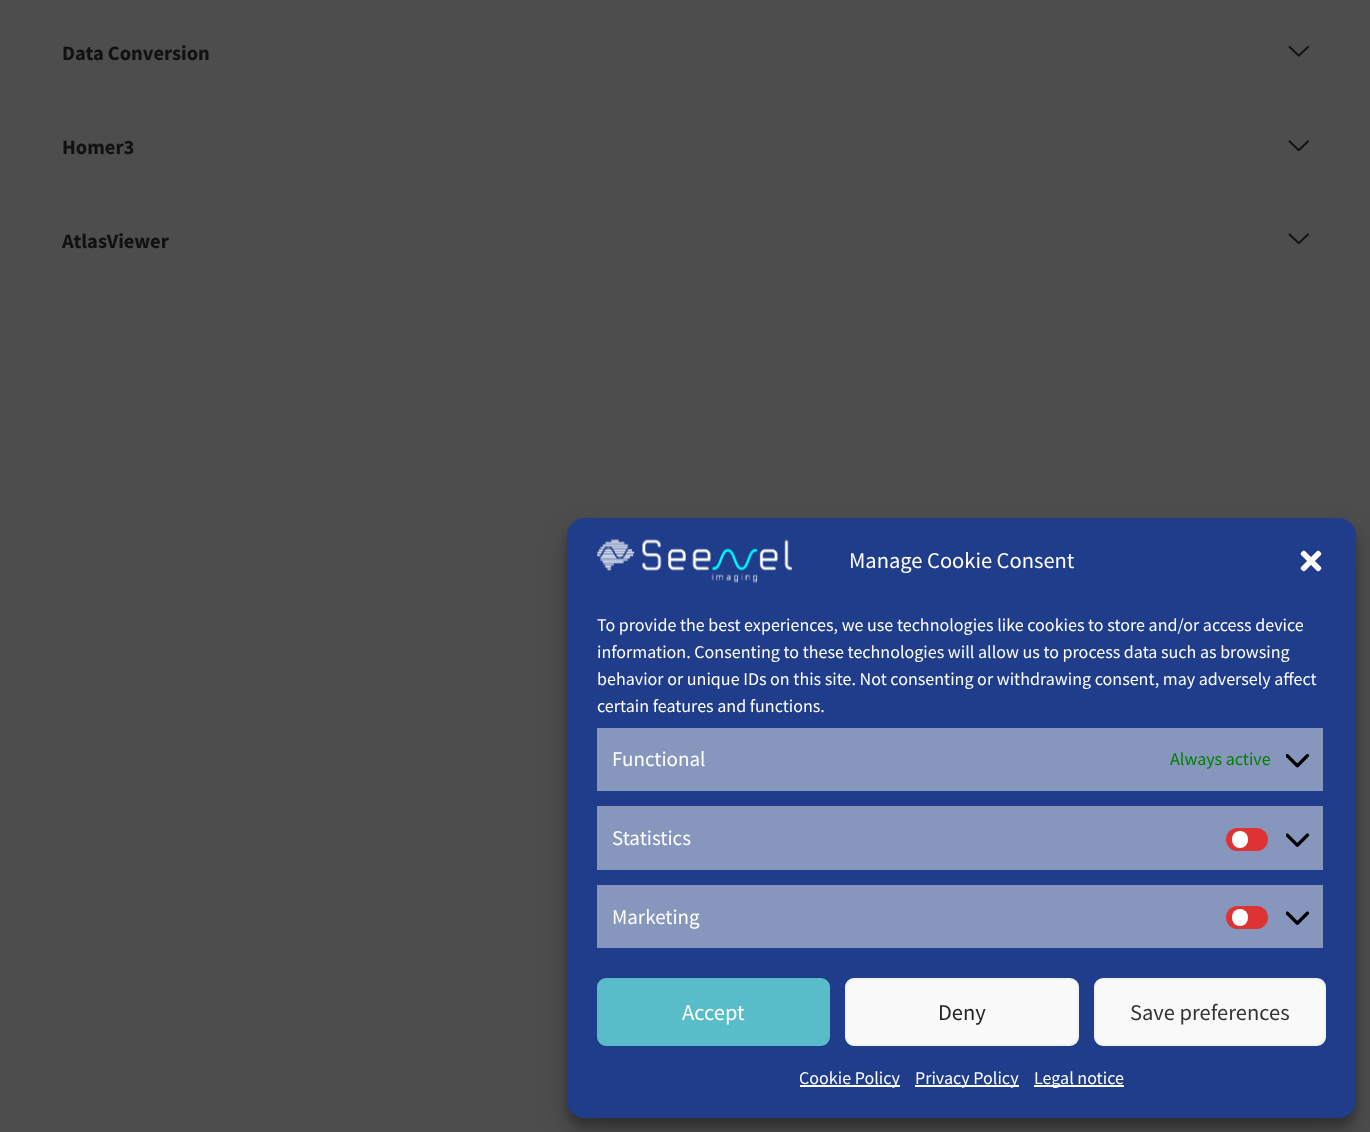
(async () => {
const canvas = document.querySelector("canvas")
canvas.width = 1370
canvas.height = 1132
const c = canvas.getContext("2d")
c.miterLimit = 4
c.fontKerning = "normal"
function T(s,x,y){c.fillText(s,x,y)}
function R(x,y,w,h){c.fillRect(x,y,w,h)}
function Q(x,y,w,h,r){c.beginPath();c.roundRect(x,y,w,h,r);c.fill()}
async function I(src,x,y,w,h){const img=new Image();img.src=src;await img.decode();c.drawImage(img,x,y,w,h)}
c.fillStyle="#4d4d4d"
R(0,0,1370,1132)
c.font="bold 20.5px Source Sans Pro"
c.fillStyle="#111"
T("Data Conversion",62,60)
await I("1.png",1288,45,21,12)
T("Homer3",62,154)
await I("2.png",1288,140,21,12)
T("AtlasViewer",62,248)
await I("2.png",1288,233,21,12)
c.fillStyle="#0000003b"
c.filter="blur(4.5px)"
c.beginPath()
c.roundRect(567,527,789,600,18)
c.fill()
c.filter="none"
c.fillStyle="#00000030"
c.filter="blur(15px)"
c.beginPath()
c.roundRect(567,533,789,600,18)
c.fill()
c.filter="none"
c.fillStyle="#1f3d8a"
Q(567,518,789,600,18)
await I("3.png",597,539,195,44)
c.font="22.5px Source Sans Pro"
c.fillStyle="#fff"
T("Manage Cookie Consent",849,568)
await I("4.png",1300,550,22,22)
c.font="18px Source Sans Pro"
T("To provide the best experiences, we use technologies like cookies to store and/or access device",597,631)
T("information. Consenting to these technologies will allow us to process data such as browsing",597,658)
T("behavior or unique IDs on this site. Not consenting or withdrawing consent, may adversely affect",597,685)
T("certain features and functions.",597,712)
c.fillStyle="#8796bd"
R(597,728,726,63)
c.font="21px Source Sans Pro"
c.fillStyle="#fff"
T("Functional",612,766)
c.font="18px Source Sans Pro"
c.fillStyle="#008000"
T("Always active",1170,765)
await I("5.png",1286,754,24,14)
c.fillStyle="#8796bd"
R(597,806,726,64)
c.font="21px Source Sans Pro"
c.fillStyle="#fff"
T("Statistics",612,845)
c.fillStyle="#d33"
Q(1226,828,42,23,11.5)
c.fillStyle="#fff"
Q(1232,831,16,17,8)
await I("6.png",1286,833,24,14)
c.fillStyle="#8796bd"
R(597,885,726,63)
c.fillStyle="#fff"
T("Marketing",612,924)
c.fillStyle="#d33"
Q(1226,906,42,23,11.5)
c.fillStyle="#fff"
Q(1232,909,16,17,8)
await I("6.png",1286,911,24,14)
c.fillStyle="#58bdc8"
c.beginPath()
c.roundRect(598,979,231,66,8)
c.fill()
c.strokeStyle="#58bdc8"
c.lineWidth=2
c.stroke()
c.font="22.5px Source Sans Pro"
c.fillStyle="#fff"
T("Accept",682,1020)
c.fillStyle="#f9f9f9"
c.beginPath()
c.roundRect(846,979,232,66,8)
c.fill()
c.strokeStyle="#f2f2f2"
c.stroke()
c.fillStyle="#222"
T("Deny",938,1020)
c.fillStyle="#f9f9f9"
c.beginPath()
c.roundRect(1095,979,230,66,8)
c.fill()
c.stroke()
c.fillStyle="#333"
T("Save preferences",1130,1020)
c.fillStyle="#fff"
R(800,1085,100,2)
c.font="18px Source Sans Pro"
T("Cookie Policy",799,1084)
R(915,1085,104,2)
T("Privacy Policy",915,1084)
R(1034,1085,90,2)
T("Legal notice",1034,1084)
})()
